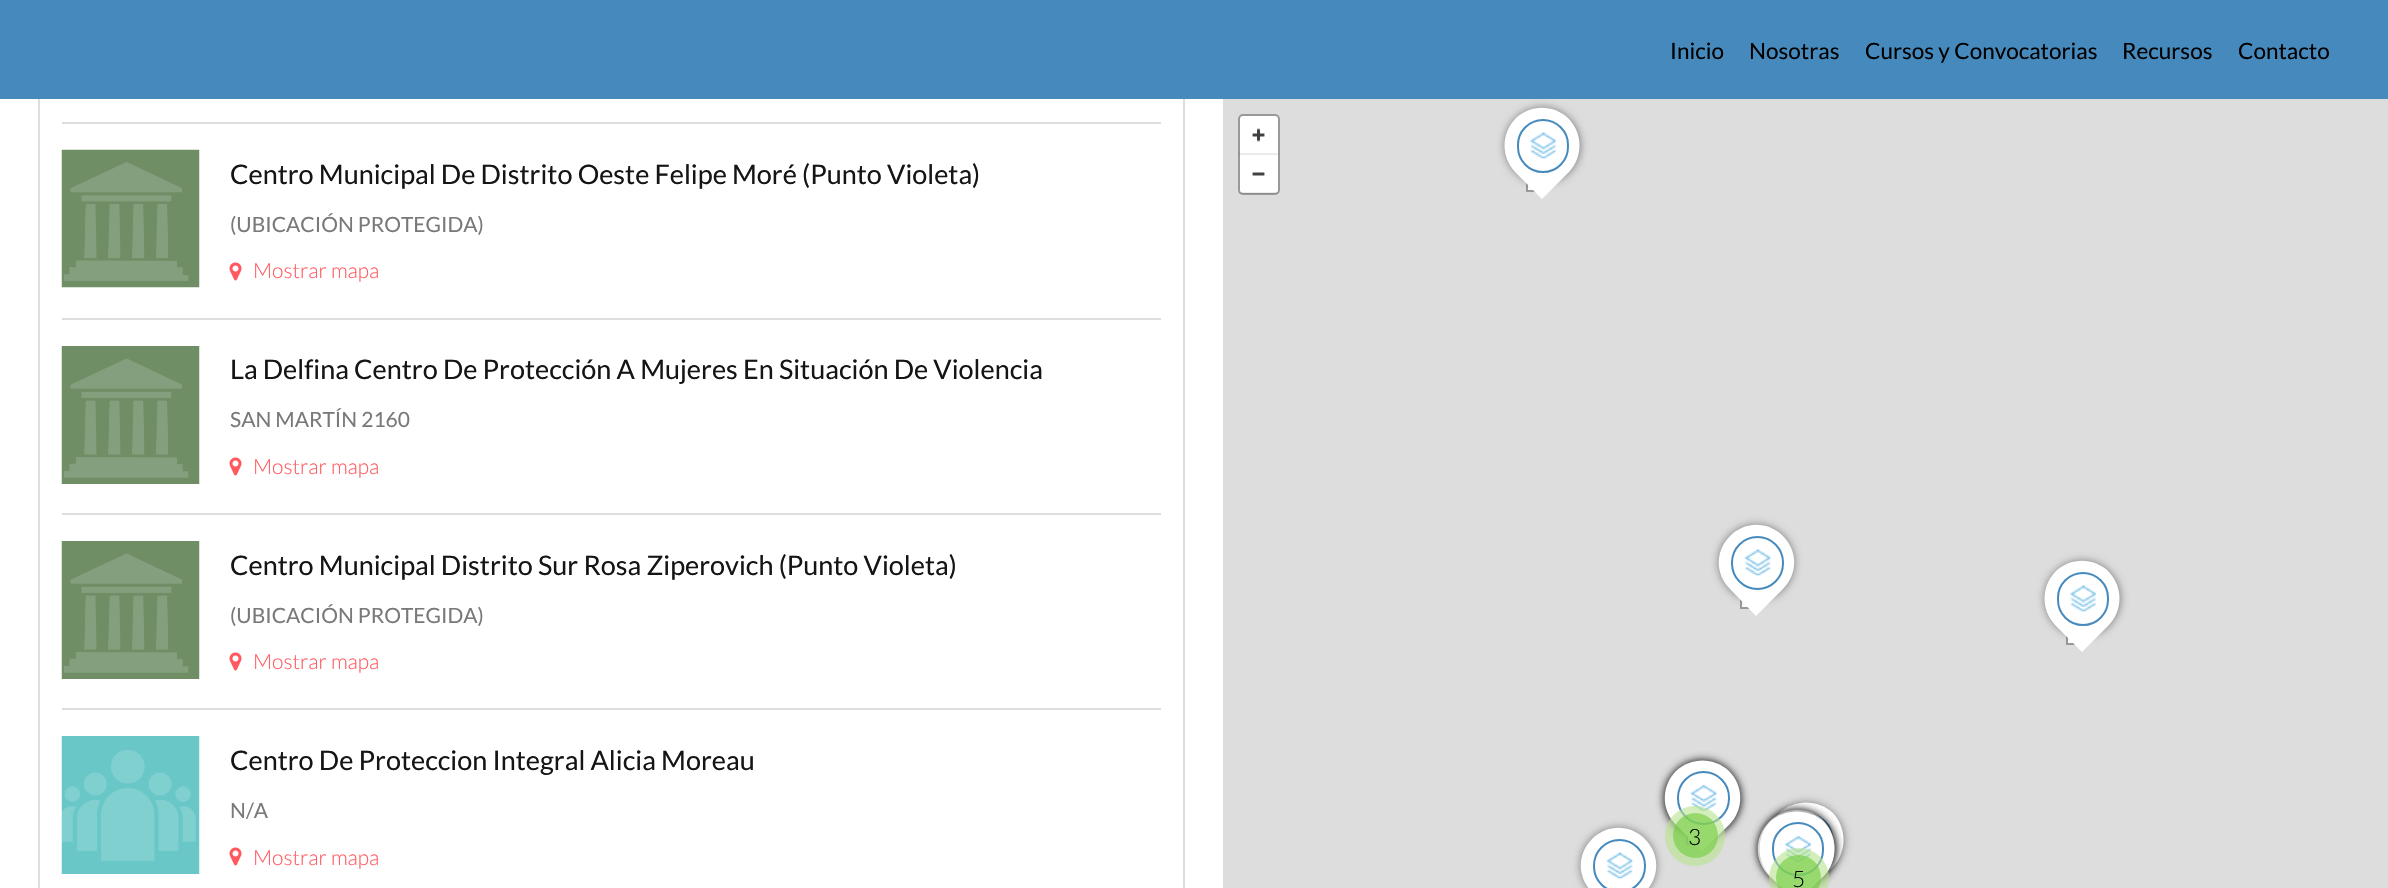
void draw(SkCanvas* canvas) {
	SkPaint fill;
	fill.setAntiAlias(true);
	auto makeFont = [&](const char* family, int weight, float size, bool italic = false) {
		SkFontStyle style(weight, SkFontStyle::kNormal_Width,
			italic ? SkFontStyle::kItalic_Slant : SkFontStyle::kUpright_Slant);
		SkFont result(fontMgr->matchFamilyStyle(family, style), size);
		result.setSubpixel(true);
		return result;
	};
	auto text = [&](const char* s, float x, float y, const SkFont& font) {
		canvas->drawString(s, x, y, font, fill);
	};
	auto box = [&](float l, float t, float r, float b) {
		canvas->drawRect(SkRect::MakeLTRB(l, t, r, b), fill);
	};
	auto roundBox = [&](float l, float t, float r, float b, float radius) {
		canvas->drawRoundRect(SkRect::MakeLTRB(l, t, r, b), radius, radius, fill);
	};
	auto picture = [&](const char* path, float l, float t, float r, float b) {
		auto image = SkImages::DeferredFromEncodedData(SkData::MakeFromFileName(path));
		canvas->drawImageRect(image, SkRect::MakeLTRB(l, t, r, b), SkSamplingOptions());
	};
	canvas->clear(0xFFFFFFFF);
	fill.setStyle(SkPaint::kStroke_Style);
	fill.setStrokeWidth(2);
	fill.setColor(0xFFDEDEDE);
	canvas->drawRect(SkRect::MakeLTRB(39, -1, 1184, 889), fill);
	fill.setStyle(SkPaint::kFill_Style);
	fill.setColor(0xFFDDDDDD);
	box(1223, 99, 2388, 888);
	fill.setColor(0xFFFFFFFF);
	box(1528, 185, 1533, 190);
	fill.setStyle(SkPaint::kStroke_Style);
	fill.setColor(0xFF999999);
	canvas->drawRect(SkRect::MakeLTRB(1527, 175, 1543, 191), fill);
	fill.setStyle(SkPaint::kFill_Style);
	fill.setColor(0x78000000);
	fill.setMaskFilter(SkMaskFilter::MakeBlur(kNormal_SkBlurStyle, 4));
	canvas->drawRoundRect(SkRect::MakeLTRB(1505, 108, 1580, 183), 37.5f, 37.5f, fill);
	fill.setMaskFilter(nullptr);
	fill.setColor(0xFF468ABD);
	box(0, 0, 2388, 99);
	fill.setColor(0xFFDEDEDE);
	box(62, 122, 1161, 124);
	box(62, 318, 1161, 320);
	picture("image0.png", 61, 149, 200, 288);
	picture("image1.png", 229, 262, 242, 281);
	box(62, 513, 1161, 515);
	picture("image2.png", 61, 346, 200, 484);
	picture("image1.png", 229, 457, 242, 476);
	box(62, 708, 1161, 710);
	picture("image2.png", 61, 541, 200, 679);
	picture("image1.png", 229, 652, 242, 671);
	picture("image3.png", 61, 736, 200, 874);
	picture("image1.png", 229, 847, 242, 866);
	fill.setColor(0xFFFFFFFF);
	roundBox(1238, 114, 1280, 195, 5);
	fill.setStyle(SkPaint::kStroke_Style);
	fill.setColor(0x66000000);
	canvas->drawRoundRect(SkRect::MakeLTRB(1239, 115, 1279, 194), 4, 4, fill);
	picture("image4.png", 1252, 128, 1265, 142);
	fill.setStyle(SkPaint::kFill_Style);
	fill.setColor(0x14000000);
	box(1239, 153, 1278, 155);
	picture("image5.png", 1252, 172, 1265, 176);
	box(1239, 192, 1278, 194);
	fill.setColor(0xFFFFFFFF);
	canvas->drawPath(SkPathBuilder().moveTo(1515, 119).cubicTo(1530, 104, 1554, 104, 1569, 119).cubicTo(1583, 134, 1583, 157, 1569, 172).lineTo(1542, 199).lineTo(1515, 172).cubicTo(1501, 157, 1501, 134, 1515, 119).close().detach(), fill);
	fill.setStyle(SkPaint::kStroke_Style);
	fill.setColor(0xFF468ABD);
	canvas->drawRoundRect(SkRect::MakeLTRB(1518, 120, 1568, 172), 25, 25, fill);
	picture("image6.png", 1530, 132, 1556, 159);
	fill.setStyle(SkPaint::kFill_Style);
	fill.setColor(0xFFFFFFFF);
	box(1742, 601, 1748, 607);
	fill.setStyle(SkPaint::kStroke_Style);
	fill.setColor(0xFF999999);
	canvas->drawRect(SkRect::MakeLTRB(1741, 592, 1757, 608), fill);
	fill.setStyle(SkPaint::kFill_Style);
	fill.setColor(0x78000000);
	fill.setMaskFilter(SkMaskFilter::MakeBlur(kNormal_SkBlurStyle, 4));
	canvas->drawRoundRect(SkRect::MakeLTRB(1719, 525, 1794, 600), 37.5f, 37.5f, fill);
	fill.setMaskFilter(nullptr);
	fill.setColor(0xFFFFFFFF);
	canvas->drawPath(SkPathBuilder().moveTo(1730, 536).cubicTo(1745, 521, 1768, 521, 1783, 536).cubicTo(1798, 551, 1798, 574, 1783, 589).lineTo(1756, 616).lineTo(1730, 589).cubicTo(1715, 574, 1715, 551, 1730, 536).close().detach(), fill);
	fill.setStyle(SkPaint::kStroke_Style);
	fill.setColor(0xFF468ABD);
	canvas->drawRoundRect(SkRect::MakeLTRB(1732, 537, 1783, 589), 25.5f, 25.5f, fill);
	picture("image7.png", 1744, 549, 1771, 576);
	fill.setStyle(SkPaint::kFill_Style);
	fill.setColor(0xFFFFFFFF);
	box(2068, 638, 2073, 643);
	fill.setStyle(SkPaint::kStroke_Style);
	fill.setColor(0xFF999999);
	canvas->drawRect(SkRect::MakeLTRB(2067, 628, 2083, 644), fill);
	fill.setStyle(SkPaint::kFill_Style);
	fill.setColor(0x78000000);
	fill.setMaskFilter(SkMaskFilter::MakeBlur(kNormal_SkBlurStyle, 4));
	canvas->drawRoundRect(SkRect::MakeLTRB(2045, 561, 2120, 636), 37.5f, 37.5f, fill);
	fill.setMaskFilter(nullptr);
	fill.setColor(0xFFFFFFFF);
	canvas->drawPath(SkPathBuilder().moveTo(2055, 572).cubicTo(2070, 557, 2094, 557, 2109, 572).cubicTo(2123, 587, 2123, 610, 2109, 625).lineTo(2082, 652).lineTo(2055, 625).cubicTo(2041, 610, 2041, 587, 2055, 572).close().detach(), fill);
	fill.setStyle(SkPaint::kStroke_Style);
	fill.setColor(0xFF468ABD);
	canvas->drawRoundRect(SkRect::MakeLTRB(2058, 573, 2108, 625), 25, 25, fill);
	picture("image6.png", 2070, 585, 2096, 612);
	fill.setStyle(SkPaint::kFill_Style);
	fill.setColor(0x78000000);
	fill.setMaskFilter(SkMaskFilter::MakeBlur(kNormal_SkBlurStyle, 4));
	canvas->drawRoundRect(SkRect::MakeLTRB(1665, 761, 1740, 836), 37.5f, 37.5f, fill);
	fill.setMaskFilter(nullptr);
	fill.setMaskFilter(SkMaskFilter::MakeBlur(kNormal_SkBlurStyle, 4));
	canvas->drawRoundRect(SkRect::MakeLTRB(1665, 761, 1740, 836), 37.5f, 37.5f, fill);
	fill.setMaskFilter(nullptr);
	fill.setColor(0xFFFFFFFF);
	box(1688, 837, 1694, 843);
	fill.setStyle(SkPaint::kStroke_Style);
	fill.setColor(0xFF999999);
	canvas->drawRect(SkRect::MakeLTRB(1687, 828, 1703, 844), fill);
	fill.setStyle(SkPaint::kFill_Style);
	fill.setColor(0x78000000);
	fill.setMaskFilter(SkMaskFilter::MakeBlur(kNormal_SkBlurStyle, 4));
	canvas->drawRoundRect(SkRect::MakeLTRB(1665, 761, 1740, 836), 37.5f, 37.5f, fill);
	fill.setMaskFilter(nullptr);
	fill.setColor(0xFFFFFFFF);
	canvas->drawPath(SkPathBuilder().moveTo(1676, 771).cubicTo(1691, 757, 1714, 757, 1729, 771).cubicTo(1744, 786, 1744, 810, 1729, 825).lineTo(1702, 851).lineTo(1676, 825).cubicTo(1661, 810, 1661, 786, 1676, 771).close().detach(), fill);
	fill.setStyle(SkPaint::kStroke_Style);
	fill.setColor(0xFF468ABD);
	canvas->drawRoundRect(SkRect::MakeLTRB(1678, 772, 1729, 824), 25.5f, 25.5f, fill);
	picture("image8.png", 1690, 785, 1717, 811);
	fill.setStyle(SkPaint::kFill_Style);
	fill.setColor(0x78000000);
	fill.setMaskFilter(SkMaskFilter::MakeBlur(kNormal_SkBlurStyle, 4));
	canvas->drawRoundRect(SkRect::MakeLTRB(1769, 803, 1844, 878), 37.5f, 37.5f, fill);
	fill.setMaskFilter(nullptr);
	fill.setColor(0xFFFFFFFF);
	canvas->drawPath(SkPathBuilder().moveTo(1779, 813).cubicTo(1794, 799, 1818, 799, 1833, 813).cubicTo(1847, 828, 1847, 852, 1833, 867).lineTo(1806, 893).lineTo(1779, 867).cubicTo(1765, 852, 1765, 828, 1779, 813).close().detach(), fill);
	fill.setStyle(SkPaint::kStroke_Style);
	fill.setColor(0xFF468ABD);
	canvas->drawRoundRect(SkRect::MakeLTRB(1782, 814, 1832, 866), 25, 25, fill);
	fill.setStyle(SkPaint::kFill_Style);
	fill.setColor(0x78000000);
	fill.setMaskFilter(SkMaskFilter::MakeBlur(kNormal_SkBlurStyle, 4));
	canvas->drawRoundRect(SkRect::MakeLTRB(1760, 810, 1835, 885), 37.5f, 37.5f, fill);
	fill.setMaskFilter(nullptr);
	fill.setMaskFilter(SkMaskFilter::MakeBlur(kNormal_SkBlurStyle, 4));
	canvas->drawRoundRect(SkRect::MakeLTRB(1760, 810, 1835, 885), 37.5f, 37.5f, fill);
	fill.setMaskFilter(nullptr);
	fill.setColor(0xFFFFFFFF);
	canvas->drawPath(SkPathBuilder().moveTo(1770, 821).cubicTo(1785, 806, 1809, 806, 1824, 821).cubicTo(1838, 836, 1838, 859, 1824, 874).lineTo(1797, 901).lineTo(1770, 874).cubicTo(1756, 859, 1756, 836, 1770, 821).close().detach(), fill);
	fill.setStyle(SkPaint::kStroke_Style);
	fill.setColor(0xFF999999);
	canvas->drawRect(SkRect::MakeLTRB(1780, 879, 1796, 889), fill);
	fill.setStyle(SkPaint::kFill_Style);
	fill.setColor(0x78000000);
	fill.setMaskFilter(SkMaskFilter::MakeBlur(kNormal_SkBlurStyle, 4));
	canvas->drawRoundRect(SkRect::MakeLTRB(1758, 812, 1833, 887), 37.5f, 37.5f, fill);
	fill.setMaskFilter(nullptr);
	fill.setColor(0xFFFFFFFF);
	canvas->drawPath(SkPathBuilder().moveTo(1769, 822).cubicTo(1784, 808, 1807, 808, 1822, 822).cubicTo(1837, 837, 1837, 861, 1822, 876).lineTo(1796, 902).lineTo(1769, 876).cubicTo(1754, 861, 1754, 837, 1769, 822).close().detach(), fill);
	fill.setColor(0x78000000);
	fill.setMaskFilter(SkMaskFilter::MakeBlur(kNormal_SkBlurStyle, 4));
	canvas->drawRoundRect(SkRect::MakeLTRB(1581, 828, 1656, 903), 37.5f, 37.5f, fill);
	fill.setMaskFilter(nullptr);
	fill.setColor(0xFFFFFFFF);
	canvas->drawPath(SkPathBuilder().moveTo(1592, 839).cubicTo(1607, 824, 1630, 824, 1645, 839).cubicTo(1660, 854, 1660, 877, 1645, 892).lineTo(1618, 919).lineTo(1592, 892).cubicTo(1577, 877, 1577, 854, 1592, 839).close().detach(), fill);
	fill.setStyle(SkPaint::kStroke_Style);
	fill.setColor(0xFF468ABD);
	canvas->drawRoundRect(SkRect::MakeLTRB(1594, 840, 1645, 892), 25.5f, 25.5f, fill);
	picture("image7.png", 1606, 852, 1633, 879);
	fill.setStyle(SkPaint::kFill_Style);
	fill.setColor(0x99B5E28C);
	canvas->drawCircle(1695, 836, 30, fill);
	fill.setColor(0x996ECC39);
	canvas->drawCircle(1695.5f, 835.5f, 22.5f, fill);
	fill.setStyle(SkPaint::kStroke_Style);
	fill.setColor(0xFF999999);
	canvas->drawRect(SkRect::MakeLTRB(1782, 879, 1798, 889), fill);
	fill.setStyle(SkPaint::kFill_Style);
	fill.setColor(0x78000000);
	fill.setMaskFilter(SkMaskFilter::MakeBlur(kNormal_SkBlurStyle, 4));
	canvas->drawRoundRect(SkRect::MakeLTRB(1760, 812, 1835, 887), 37.5f, 37.5f, fill);
	fill.setMaskFilter(nullptr);
	fill.setColor(0xFFFFFFFF);
	canvas->drawPath(SkPathBuilder().moveTo(1770, 822).cubicTo(1785, 808, 1809, 808, 1824, 822).cubicTo(1838, 837, 1838, 861, 1824, 876).lineTo(1797, 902).lineTo(1770, 876).cubicTo(1756, 861, 1756, 837, 1770, 822).close().detach(), fill);
	fill.setStyle(SkPaint::kStroke_Style);
	fill.setColor(0xFF468ABD);
	canvas->drawRoundRect(SkRect::MakeLTRB(1773, 823, 1823, 875), 25, 25, fill);
	picture("image9.png", 1785, 836, 1811, 862);
	fill.setStyle(SkPaint::kFill_Style);
	fill.setColor(0x99B5E28C);
	canvas->drawCircle(1799, 878, 30, fill);
	fill.setColor(0x996ECC39);
	canvas->drawCircle(1798.5f, 877.5f, 22.5f, fill);
	auto font1 = makeFont("Lato", 400, 22.5f);
	fill.setColor(0xFF000000);
	text("Inicio", 1670, 59, font1);
	text("Nosotras", 1749, 59, font1);
	text("Cursos y Convocatorias", 1865, 59, font1);
	text("Recursos", 2122, 59, font1);
	text("Contacto", 2238, 59, font1);
	auto font2 = makeFont("Lato", 400, 27);
	fill.setColor(0xFF151515);
	text("Centro Municipal De Distrito Oeste Felipe Moré (Punto Violeta)", 230, 184, font2);
	auto font3 = makeFont("Lato", 400, 21);
	fill.setColor(0xFF797979);
	text("(UBICACIÓN PROTEGIDA)", 230, 232, font3);
	auto font4 = makeFont("Lato", 300, 21);
	fill.setColor(0xFFFF595F);
	text("Mostrar mapa", 253, 278, font4);
	fill.setColor(0xFF151515);
	text("La Delfina Centro De Protección A Mujeres En Situación De Violencia", 230, 379, font2);
	fill.setColor(0xFF797979);
	text("SAN MARTÍN 2160", 230, 427, font3);
	fill.setColor(0xFFFF595F);
	text("Mostrar mapa", 253, 474, font4);
	fill.setColor(0xFF151515);
	text("Centro Municipal Distrito Sur Rosa Ziperovich (Punto Violeta)", 230, 575, font2);
	fill.setColor(0xFF797979);
	text("(UBICACIÓN PROTEGIDA)", 230, 623, font3);
	fill.setColor(0xFFFF595F);
	text("Mostrar mapa", 253, 669, font4);
	fill.setColor(0xFF151515);
	text("Centro De Proteccion Integral Alicia Moreau", 230, 770, font2);
	fill.setColor(0xFF797979);
	text("N/A", 230, 818, font3);
	fill.setColor(0xFFFF595F);
	text("Mostrar mapa", 253, 865, font4);
	auto font5 = makeFont("Lato", 300, 22.5f);
	fill.setColor(0xFF000000);
	text("3", 1688, 845, font5);
	text("5", 1792, 887, font5);
}
